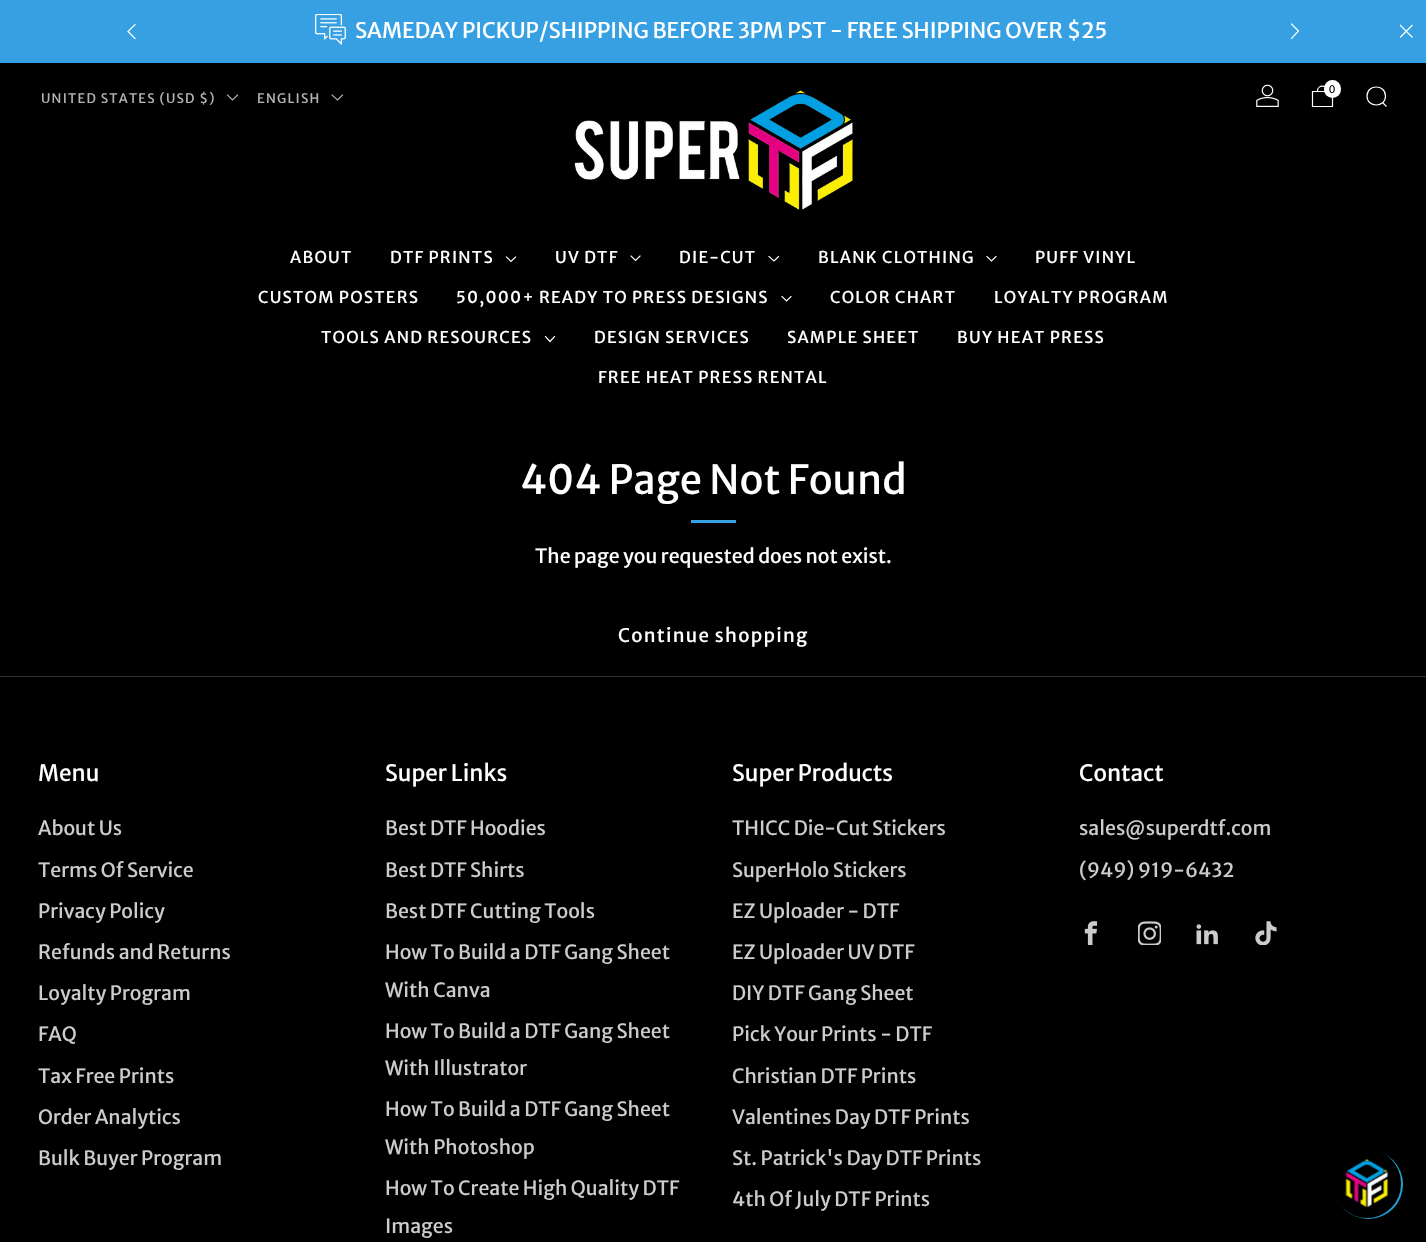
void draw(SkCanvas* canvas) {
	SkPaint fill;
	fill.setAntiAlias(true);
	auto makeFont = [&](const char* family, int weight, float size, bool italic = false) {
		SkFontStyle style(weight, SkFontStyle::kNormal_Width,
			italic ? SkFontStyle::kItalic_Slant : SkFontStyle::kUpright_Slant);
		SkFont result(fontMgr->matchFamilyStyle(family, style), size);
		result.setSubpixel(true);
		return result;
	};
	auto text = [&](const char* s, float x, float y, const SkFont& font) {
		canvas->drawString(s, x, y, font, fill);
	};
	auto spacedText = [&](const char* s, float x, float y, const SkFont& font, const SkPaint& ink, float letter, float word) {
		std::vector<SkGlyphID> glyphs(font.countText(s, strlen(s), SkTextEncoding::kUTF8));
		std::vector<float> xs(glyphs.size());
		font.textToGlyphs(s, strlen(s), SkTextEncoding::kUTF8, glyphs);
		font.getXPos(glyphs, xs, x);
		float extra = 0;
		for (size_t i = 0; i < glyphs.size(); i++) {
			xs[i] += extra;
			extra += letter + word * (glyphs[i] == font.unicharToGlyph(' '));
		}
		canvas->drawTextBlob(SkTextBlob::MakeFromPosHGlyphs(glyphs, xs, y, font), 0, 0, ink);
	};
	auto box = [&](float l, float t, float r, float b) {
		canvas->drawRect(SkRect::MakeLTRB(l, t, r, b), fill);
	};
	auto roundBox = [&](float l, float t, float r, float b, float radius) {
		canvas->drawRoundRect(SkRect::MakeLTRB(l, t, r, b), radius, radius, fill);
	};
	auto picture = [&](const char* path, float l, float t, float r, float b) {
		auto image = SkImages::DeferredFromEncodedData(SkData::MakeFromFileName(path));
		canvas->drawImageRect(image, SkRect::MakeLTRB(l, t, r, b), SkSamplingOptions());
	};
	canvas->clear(0xFF000000);
	fill.setColor(0xFF36A0E3);
	box(0, 0, 1426, 63);
	fill.setStyle(SkPaint::kStroke_Style);
	fill.setStrokeWidth(1.2f);
	fill.setStrokeCap(SkPaint::kSquare_Cap);
	fill.setColor(0xFFFFFFFF);
	canvas->drawPath(SkPathBuilder().moveTo(135, 38.5f).lineTo(128, 31.5f).lineTo(135, 24.5f).detach(), fill);
	picture("image0.png", 315, 14, 346, 45);
	canvas->drawPath(SkPathBuilder().moveTo(1291.5f, 24).lineTo(1298.5f, 31).lineTo(1291.5f, 38.5f).detach(), fill);
	fill.setStrokeCap(SkPaint::kButt_Cap);
	canvas->drawPath(SkPathBuilder().moveTo(1400, 37.5f).lineTo(1412.5f, 25).moveTo(1400, 25).lineTo(1412.5f, 37.5f).detach(), fill);
	picture("image1.png", 1256, 84, 1279, 107);
	canvas->drawPath(SkPathBuilder().moveTo(1327.5f, 91).cubicTo(1327.5f, 84.5f, 1317.5f, 84.5f, 1317.5f, 91).moveTo(1312.5f, 91.5f).lineTo(1332.5f, 91.5f).lineTo(1332.5f, 106.5f).lineTo(1312.5f, 106.5f).close().detach(), fill);
	fill.setStyle(SkPaint::kFill_Style);
	roundBox(1324, 80, 1341, 98, 8.5f);
	fill.setStyle(SkPaint::kStroke_Style);
	canvas->drawPath(SkPathBuilder().moveTo(1382.5f, 102.5f).lineTo(1386.5f, 106.5f).moveTo(1385.5f, 96).cubicTo(1385.5f, 108, 1367, 108, 1367, 96).cubicTo(1367, 84, 1385.5f, 84, 1385.5f, 96).close().detach(), fill);
	fill.setStrokeCap(SkPaint::kSquare_Cap);
	fill.setColor(0xFFB3B3B3);
	canvas->drawPath(SkPathBuilder().moveTo(237.5f, 95).lineTo(232.5f, 100).lineTo(227.5f, 95).detach(), fill);
	canvas->drawPath(SkPathBuilder().moveTo(342.5f, 95).lineTo(337.5f, 100).lineTo(332, 95).detach(), fill);
	fill.setColor(0xFFFFFFFF);
	canvas->drawPath(SkPathBuilder().moveTo(515.5f, 257).lineTo(511, 261.5f).lineTo(506.5f, 257).detach(), fill);
	canvas->drawPath(SkPathBuilder().moveTo(640, 256).lineTo(635.5f, 260.5f).lineTo(631, 256).detach(), fill);
	canvas->drawPath(SkPathBuilder().moveTo(778.5f, 256.5f).lineTo(774, 261).lineTo(769, 256.5f).detach(), fill);
	canvas->drawPath(SkPathBuilder().moveTo(996, 256.5f).lineTo(991.5f, 261).lineTo(987, 256.5f).detach(), fill);
	canvas->drawPath(SkPathBuilder().moveTo(791, 296.5f).lineTo(786.5f, 301).lineTo(782, 296.5f).detach(), fill);
	canvas->drawPath(SkPathBuilder().moveTo(554.5f, 336.5f).lineTo(550, 341.5f).lineTo(545.5f, 336.5f).detach(), fill);
	picture("image2.png", 574, 90, 853, 210);
	fill.setStyle(SkPaint::kFill_Style);
	fill.setColor(0xFF36A0E3);
	box(691, 520, 736, 523);
	fill.setColor(0xFF333333);
	box(0, 676, 1426, 677);
	picture("image3.png", 1084, 921, 1098, 945);
	picture("image4.png", 1138, 921, 1161, 945);
	picture("image5.png", 1196, 924, 1218, 945);
	picture("image6.png", 1255, 921, 1277, 945);
	fill.setColor(0xFF29ABE2);
	canvas->drawCircle(1368.5f, 1184.5f, 34.5f, fill);
	fill.setColor(0x33000000);
	fill.setMaskFilter(SkMaskFilter::MakeBlur(kNormal_SkBlurStyle, 9.5f));
	canvas->drawRoundRect(SkRect::MakeLTRB(1333, 1154, 1401, 1223), 34, 34, fill);
	fill.setMaskFilter(nullptr);
	fill.setColor(0xFF000000);
	roundBox(1333, 1149, 1401, 1218, 34);
	picture("image7.png", 1345, 1158, 1389, 1207);
	auto font1 = makeFont("Merriweather Sans", 400, 21.45f);
	fill.setColor(0xFFFFFFFF);
	text("SAMEDAY PICKUP/SHIPPING BEFORE 3PM PST - FREE SHIPPING OVER $25", 355, 38, font1);
	auto font2 = makeFont("Liberation Sans", 400, 11);
	fill.setColor(0xFF000000);
	text("0", 1329, 93, font2);
	auto font3 = makeFont("Merriweather Sans", 400, 13);
	fill.setColor(0xFFB3B3B3);
	spacedText("UNITED STATES (USD $)", 41, 103, font3, fill, 1.25f, 0);
	spacedText("ENGLISH", 257, 103, font3, fill, 1.25f, 0);
	auto font4 = makeFont("Merriweather Sans", 400, 16.25f);
	fill.setColor(0xFFFFFFFF);
	spacedText("ABOUT", 290, 263, font4, fill, 1.25f, 0);
	spacedText("DTF PRINTS", 390, 263, font4, fill, 1.25f, 0);
	spacedText("UV DTF", 555, 263, font4, fill, 1.25f, 0);
	spacedText("DIE-CUT", 679, 263, font4, fill, 1.25f, 0);
	spacedText("BLANK CLOTHING", 818, 263, font4, fill, 1.25f, 0);
	spacedText("PUFF VINYL", 1035, 263, font4, fill, 1.25f, 0);
	spacedText("CUSTOM POSTERS", 258, 303, font4, fill, 1.25f, 0);
	spacedText("50,000+ READY TO PRESS DESIGNS", 456, 303, font4, fill, 1.25f, 0);
	spacedText("COLOR CHART", 830, 303, font4, fill, 1.25f, 0);
	spacedText("LOYALTY PROGRAM", 994, 303, font4, fill, 1.25f, 0);
	spacedText("TOOLS AND RESOURCES", 321, 343, font4, fill, 1.25f, 0);
	spacedText("DESIGN SERVICES", 594, 343, font4, fill, 1.25f, 0);
	spacedText("SAMPLE SHEET", 787, 343, font4, fill, 1.25f, 0);
	spacedText("BUY HEAT PRESS", 957, 343, font4, fill, 1.25f, 0);
	spacedText("FREE HEAT PRESS RENTAL", 598, 383, font4, fill, 1.25f, 0);
	auto font5 = makeFont("Merriweather Sans", 400, 40);
	text("404 Page Not Found", 520, 494, font5);
	auto font6 = makeFont("Merriweather Sans", 400, 19.5f);
	text("The page you requested does not exist.", 535, 563, font6);
	auto font7 = makeFont("Merriweather Sans", 400, 18.75f);
	spacedText("Continue shopping", 618, 642, font7, fill, 1.25f, 0);
	auto font8 = makeFont("Merriweather Sans", 400, 22.5f);
	text("Menu", 38, 781, font8);
	fill.setColor(0xFFCCCCCC);
	text("About Us", 38, 835, font6);
	text("Terms Of Service", 38, 877, font6);
	text("Privacy Policy", 38, 918, font6);
	text("Refunds and Returns", 38, 959, font6);
	text("Loyalty Program", 38, 1000, font6);
	text("FAQ", 38, 1041, font6);
	text("Tax Free Prints", 38, 1083, font6);
	text("Order Analytics", 38, 1124, font6);
	text("Bulk Buyer Program", 38, 1165, font6);
	fill.setColor(0xFFFFFFFF);
	text("Super Links", 385, 781, font8);
	fill.setColor(0xFFCCCCCC);
	text("Best DTF Hoodies", 385, 835, font6);
	text("Best DTF Shirts", 385, 877, font6);
	text("Best DTF Cutting Tools", 385, 918, font6);
	text("How To Build a DTF Gang Sheet", 385, 959, font6);
	text("With Canva", 385, 997, font6);
	text("How To Build a DTF Gang Sheet", 385, 1038, font6);
	text("With Illustrator", 385, 1075, font6);
	text("How To Build a DTF Gang Sheet", 385, 1116, font6);
	text("With Photoshop", 385, 1154, font6);
	text("How To Create High Quality DTF", 385, 1195, font6);
	text("Images", 385, 1233, font6);
	fill.setColor(0xFFFFFFFF);
	text("Super Products", 732, 781, font8);
	fill.setColor(0xFFCCCCCC);
	text("THICC Die-Cut Stickers", 732, 835, font6);
	text("SuperHolo Stickers", 732, 877, font6);
	text("EZ Uploader - DTF", 732, 918, font6);
	text("EZ Uploader UV DTF", 732, 959, font6);
	text("DIY DTF Gang Sheet", 732, 1000, font6);
	text("Pick Your Prints - DTF", 732, 1041, font6);
	text("Christian DTF Prints", 732, 1083, font6);
	text("Valentines Day DTF Prints", 732, 1124, font6);
	text("St. Patrick's Day DTF Prints", 732, 1165, font6);
	text("4th Of July DTF Prints", 732, 1206, font6);
	fill.setColor(0xFFFFFFFF);
	text("Contact", 1079, 781, font8);
	fill.setColor(0xFFCCCCCC);
	text("sales@superdtf.com", 1079, 835, font6);
	text("(949) 919-6432", 1079, 877, font6);
}
